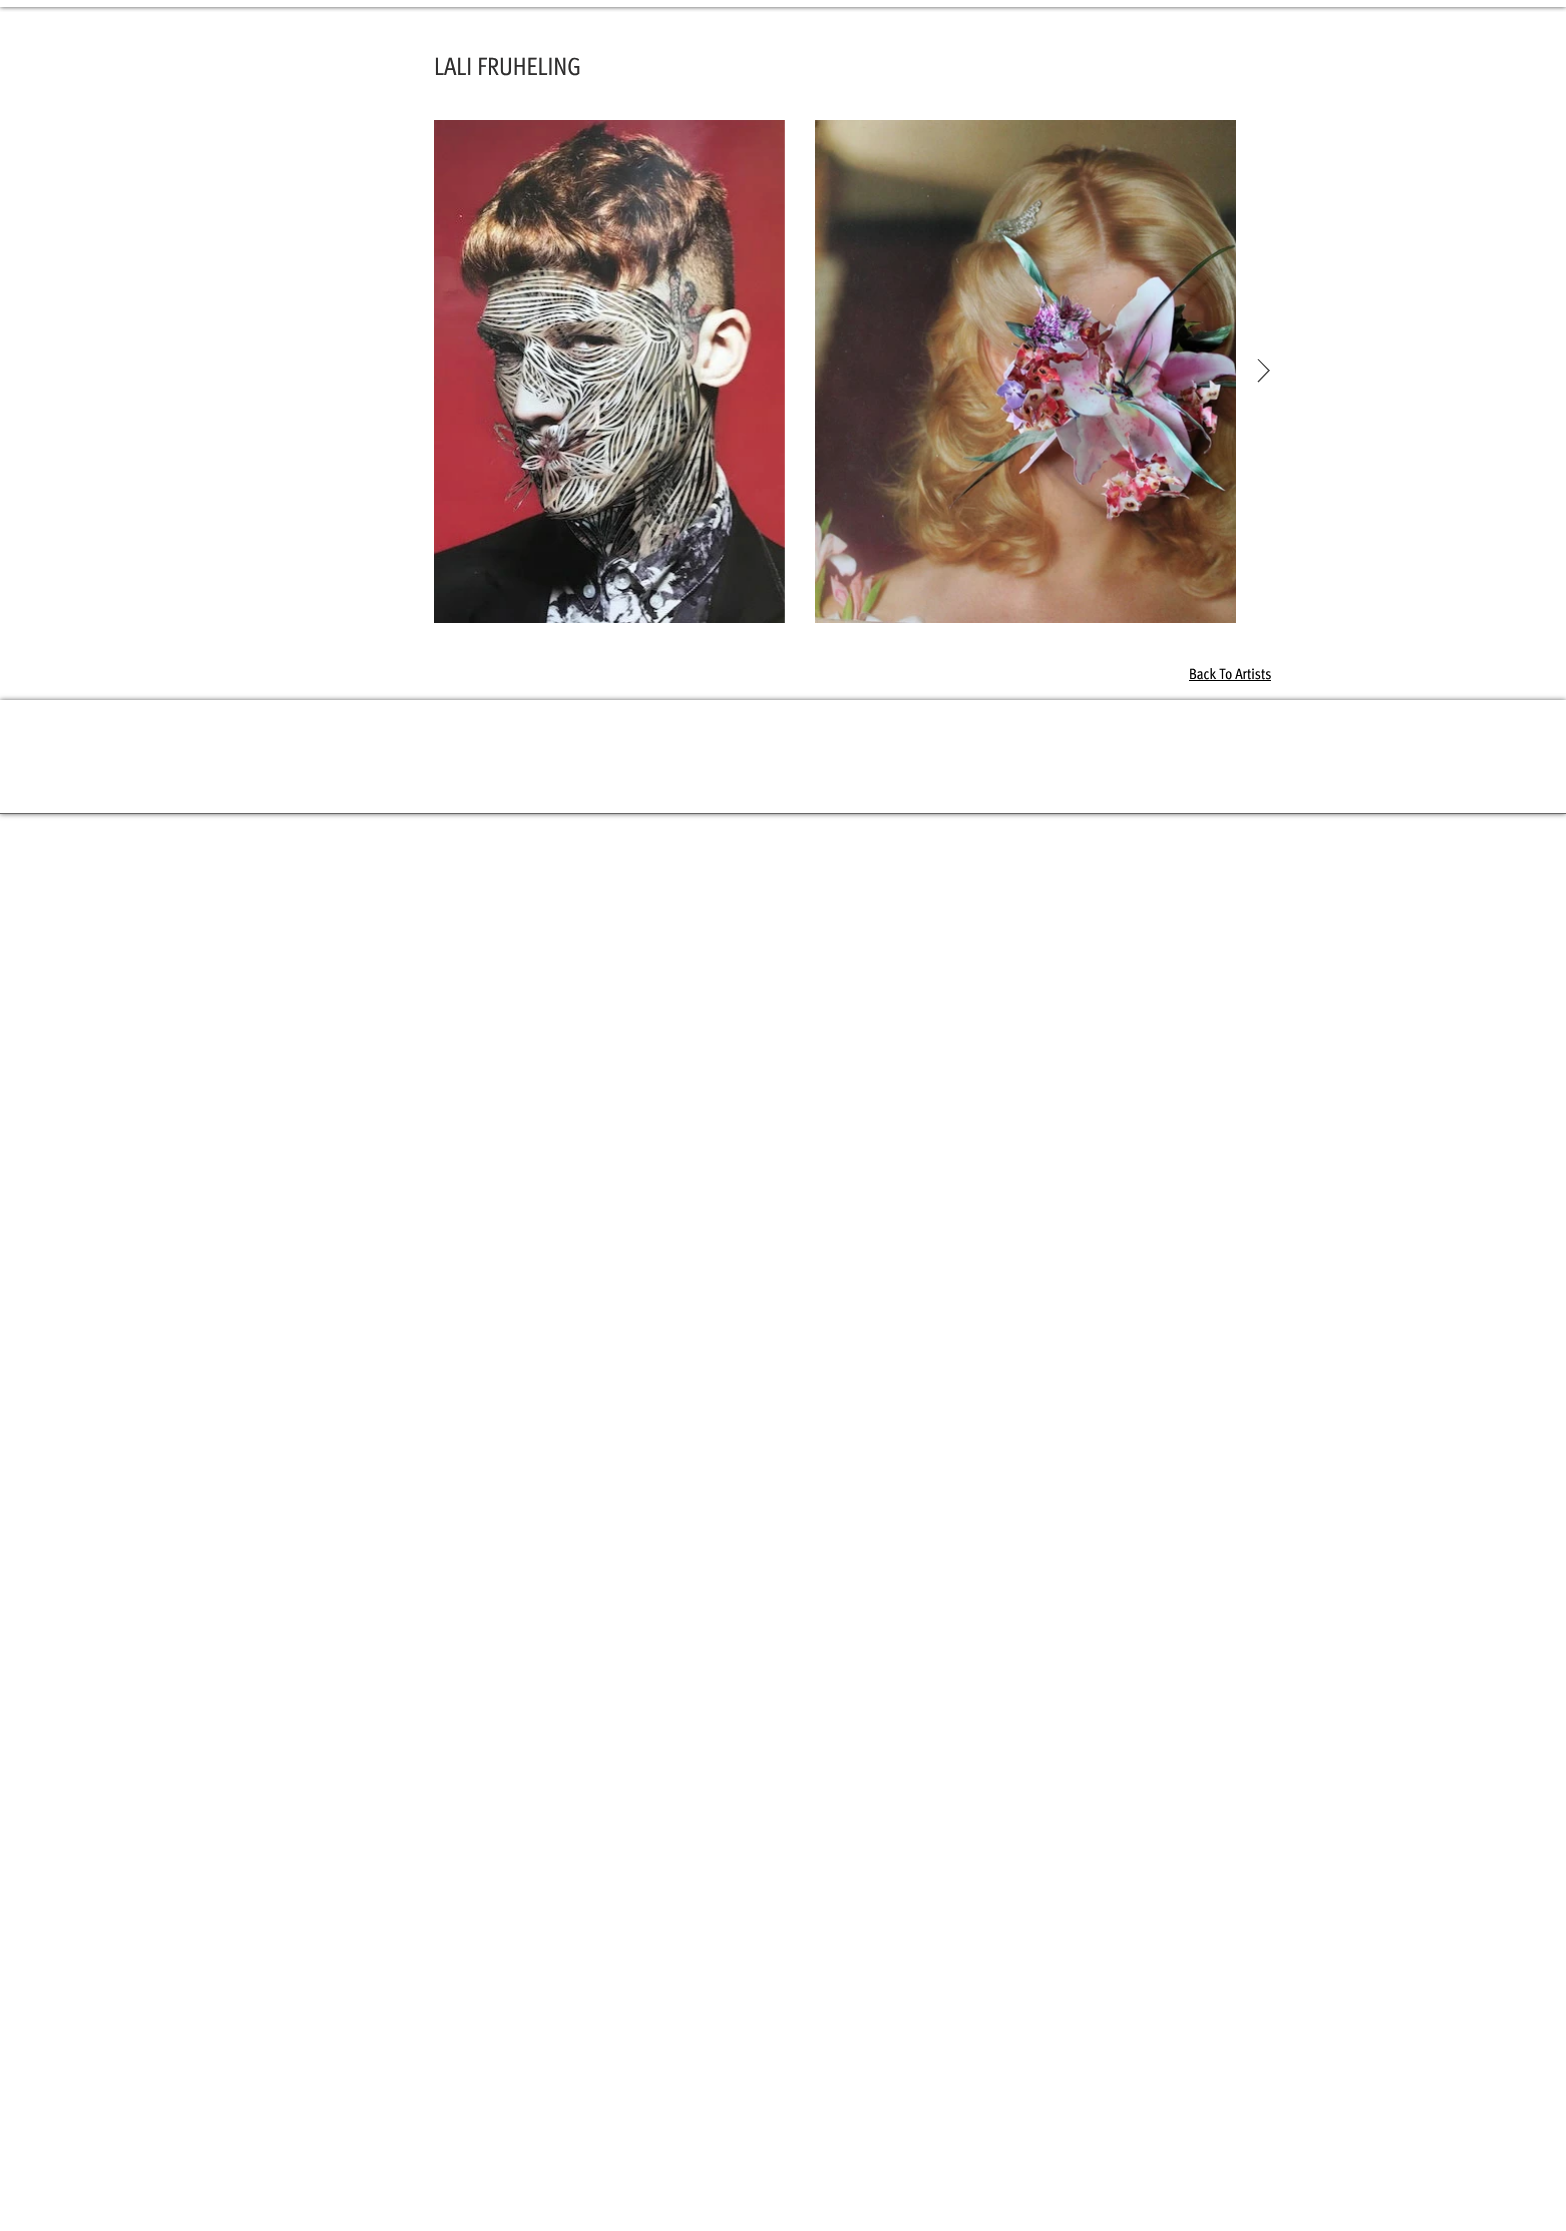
void draw(SkCanvas* canvas) {
	SkPaint fill;
	fill.setAntiAlias(true);
	auto makeFont = [&](const char* family, int weight, float size, bool italic = false) {
		SkFontStyle style(weight, SkFontStyle::kNormal_Width,
			italic ? SkFontStyle::kItalic_Slant : SkFontStyle::kUpright_Slant);
		SkFont result(fontMgr->matchFamilyStyle(family, style), size);
		result.setSubpixel(true);
		return result;
	};
	auto text = [&](const char* s, float x, float y, const SkFont& font) {
		canvas->drawString(s, x, y, font, fill);
	};
	auto box = [&](float l, float t, float r, float b) {
		canvas->drawRect(SkRect::MakeLTRB(l, t, r, b), fill);
	};
	auto picture = [&](const char* path, float l, float t, float r, float b) {
		auto image = SkImages::DeferredFromEncodedData(SkData::MakeFromFileName(path));
		canvas->drawImageRect(image, SkRect::MakeLTRB(l, t, r, b), SkSamplingOptions());
	};
	canvas->clear(0xFFFFFFFF);
	canvas->save();
	canvas->clipRect(SkRect::MakeLTRB(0, 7, 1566, 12));
	fill.setColor(0xB3000000);
	fill.setMaskFilter(SkMaskFilter::MakeBlur(kNormal_SkBlurStyle, 2.5f));
	canvas->drawRect(SkRect::MakeLTRB(0, 0, 1566, 7), fill);
	fill.setMaskFilter(nullptr);
	canvas->restore();
	picture("image0.png", 434, 120, 785, 623);
	picture("image1.png", 815, 120, 1236, 623);
	fill.setColor(0xFF474747);
	canvas->drawPath(SkPathBuilder().moveTo(1257.5f, 359.5f).lineTo(1258.5f, 359).lineTo(1270, 370.5f).lineTo(1258.5f, 382.5f).lineTo(1257.5f, 381.5f).lineTo(1268, 370.5f).close().detach(), fill);
	fill.setColor(0xFF000000);
	box(1189, 680, 1271, 681);
	canvas->save();
	canvas->clipPath(SkPathBuilder(SkPathFillType::kEvenOdd).moveTo(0, 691).lineTo(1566, 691).lineTo(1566, 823).lineTo(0, 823).close().moveTo(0, 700).lineTo(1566, 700).lineTo(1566, 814).lineTo(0, 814).close().detach(), true);
	fill.setColor(0x99000000);
	fill.setMaskFilter(SkMaskFilter::MakeBlur(kNormal_SkBlurStyle, 2.5f));
	canvas->drawRect(SkRect::MakeLTRB(0, 700, 1566, 814), fill);
	fill.setMaskFilter(nullptr);
	canvas->restore();
	fill.setColor(0xFF666666);
	box(0, 813, 1566, 814);
	auto font1 = makeFont("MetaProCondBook", 400, 25);
	fill.setColor(0xFF2F2E2E);
	text("LALI FRUHELING", 434, 75, font1);
	auto font2 = makeFont("MetaProCondBook", 400, 15);
	fill.setColor(0xFF000000);
	text("Back To Artists", 1189, 679, font2);
}
